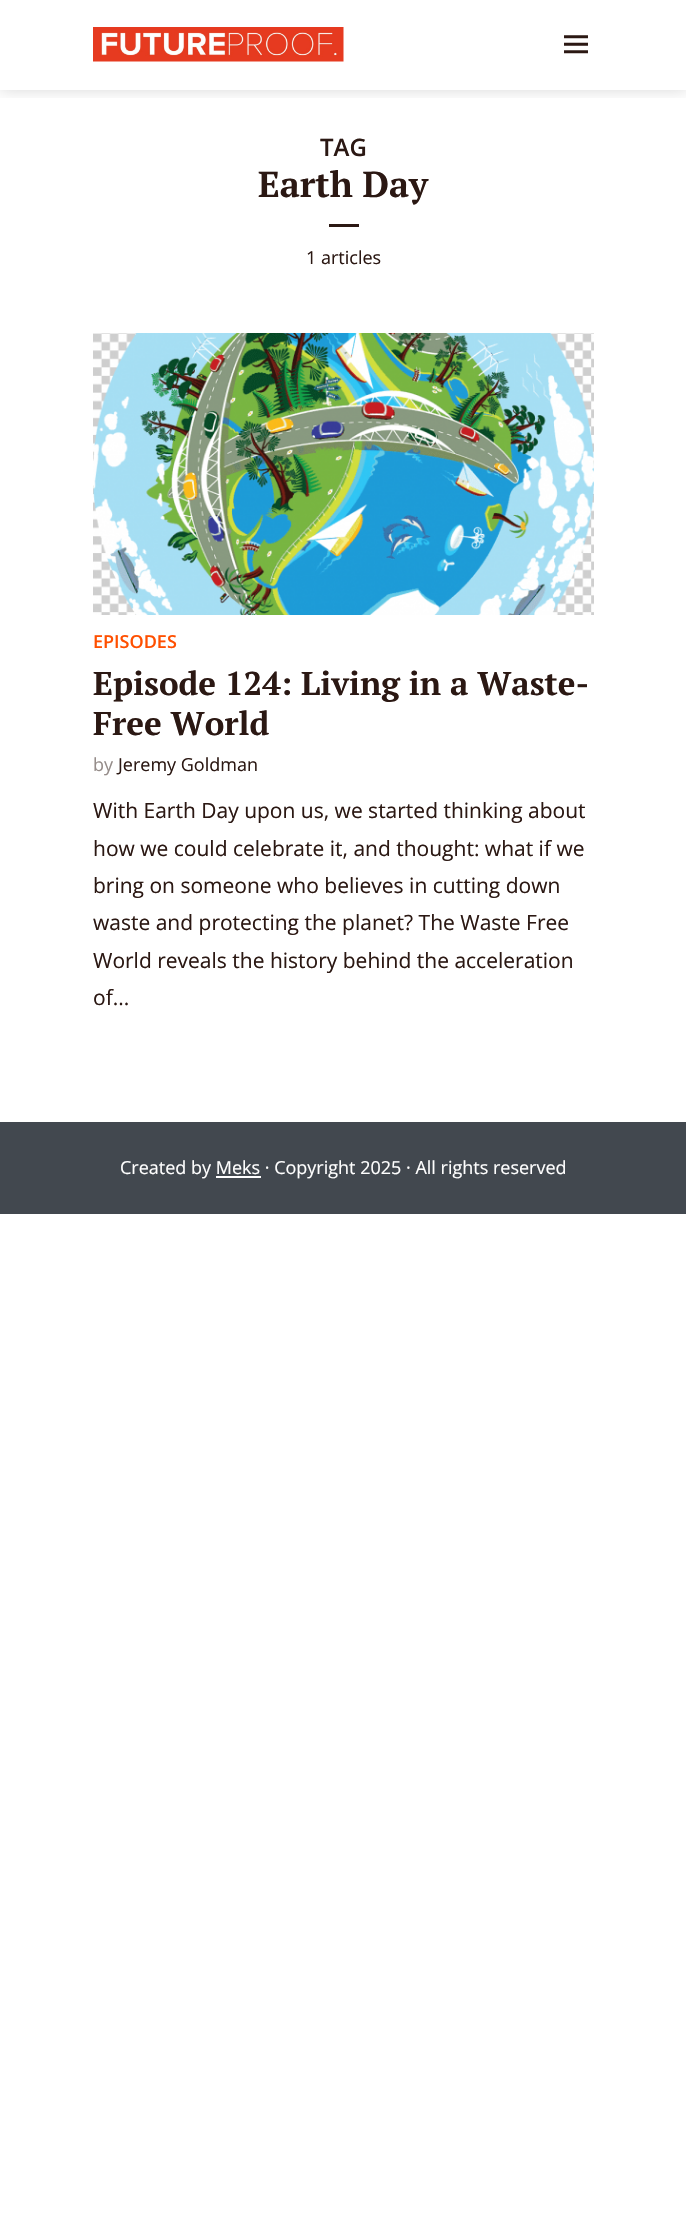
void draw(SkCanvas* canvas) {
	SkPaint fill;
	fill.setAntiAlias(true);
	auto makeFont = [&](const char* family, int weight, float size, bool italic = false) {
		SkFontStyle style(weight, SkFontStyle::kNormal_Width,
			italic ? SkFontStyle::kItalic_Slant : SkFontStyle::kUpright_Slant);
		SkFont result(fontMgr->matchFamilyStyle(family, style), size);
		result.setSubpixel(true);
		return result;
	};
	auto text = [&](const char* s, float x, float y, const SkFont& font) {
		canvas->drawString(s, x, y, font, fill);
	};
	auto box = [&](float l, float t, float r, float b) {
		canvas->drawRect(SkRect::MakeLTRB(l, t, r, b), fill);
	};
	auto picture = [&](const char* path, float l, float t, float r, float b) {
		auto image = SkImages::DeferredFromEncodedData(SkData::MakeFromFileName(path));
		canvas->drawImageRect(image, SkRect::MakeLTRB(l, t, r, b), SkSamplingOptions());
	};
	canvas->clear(0xFFFFFFFF);
	canvas->save();
	canvas->clipRect(SkRect::MakeLTRB(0, 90, 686, 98));
	fill.setColor(0x26000000);
	fill.setMaskFilter(SkMaskFilter::MakeBlur(kNormal_SkBlurStyle, 7.5f));
	canvas->drawRect(SkRect::MakeLTRB(0, 0, 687, 90), fill);
	fill.setMaskFilter(nullptr);
	canvas->restore();
	picture("image0.png", 93, 27, 344, 62);
	picture("image1.png", 564, 35, 588, 54);
	fill.setColor(0xFF2B1813);
	box(329, 224, 359, 227);
	picture("image2.png", 93, 333, 594, 615);
	fill.setColor(0xFF42484F);
	box(0, 1122, 686, 1214);
	fill.setColor(0xFFFFFFFF);
	box(216, 1176, 261, 1178);
	auto font1 = makeFont("Open Sans", 600, 24);
	fill.setColor(0xFF2B1813);
	text("TAG", 320, 156, font1);
	auto font2 = makeFont("PT Serif", 700, 36);
	text("Earth Day", 258, 197, font2);
	auto font3 = makeFont("Open Sans", 400, 18);
	text("1 articles", 306, 264, font3);
	auto font4 = makeFont("Open Sans", 600, 18);
	fill.setColor(0xFFFF4F00);
	text("EPISODES", 93, 648, font4);
	auto font5 = makeFont("PT Serif", 700, 33);
	fill.setColor(0xFF2B1813);
	text("Episode 124: Living in a Waste-", 93, 695, font5);
	text("Free World", 93, 735, font5);
	fill.setColor(0xFF958C89);
	text("by", 93, 771, font3);
	fill.setColor(0xFF2B1813);
	text("Jeremy Goldman", 118, 771, font3);
	auto font6 = makeFont("Open Sans", 400, 21);
	text("With Earth Day upon us, we started thinking about", 93, 818, font6);
	text("how we could celebrate it, and thought: what if we", 93, 856, font6);
	text("bring on someone who believes in cutting down", 93, 893, font6);
	text("waste and protecting the planet? The Waste Free", 93, 930, font6);
	text("World reveals the history behind the acceleration", 93, 968, font6);
	text("of...", 93, 1005, font6);
	fill.setColor(0xFFFFFFFF);
	text("Created by Meks · Copyright 2025 · All rights reserved", 120, 1174, font3);
}
